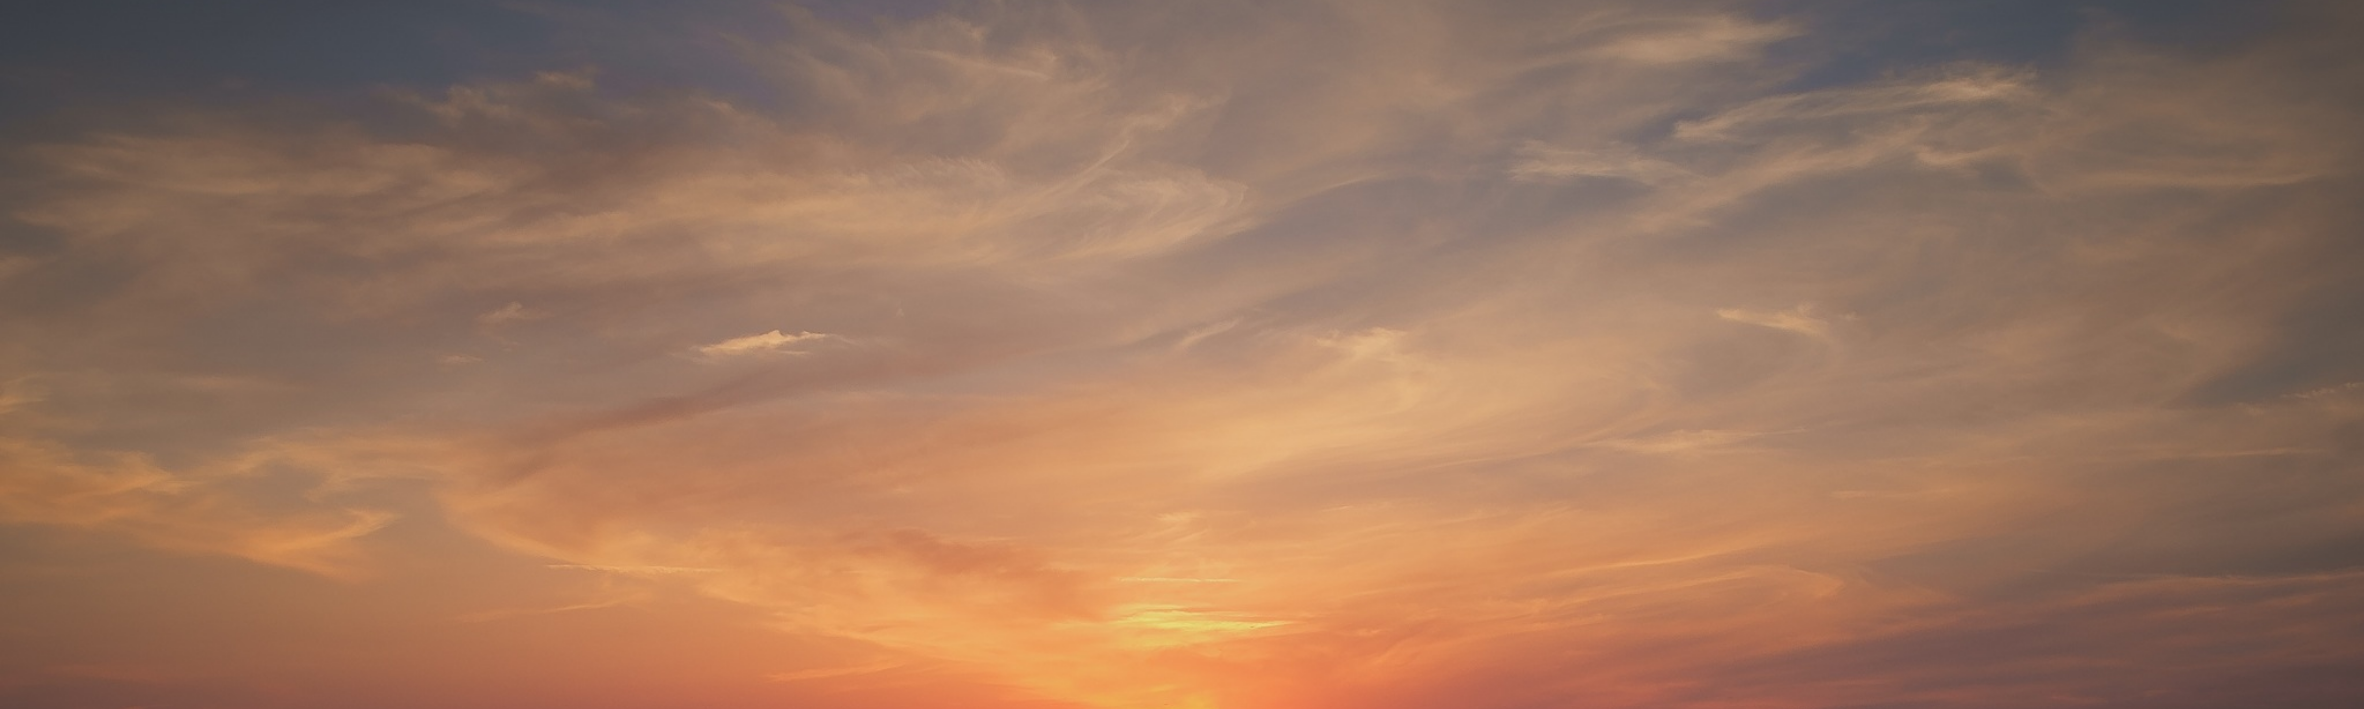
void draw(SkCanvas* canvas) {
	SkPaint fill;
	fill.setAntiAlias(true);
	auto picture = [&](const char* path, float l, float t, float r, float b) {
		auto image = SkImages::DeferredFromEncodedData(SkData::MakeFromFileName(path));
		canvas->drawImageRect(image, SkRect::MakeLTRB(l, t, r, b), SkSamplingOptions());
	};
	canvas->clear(0xFFFFFFFF);
	picture("image0.png", 0, 0, 2364, 709);
}
